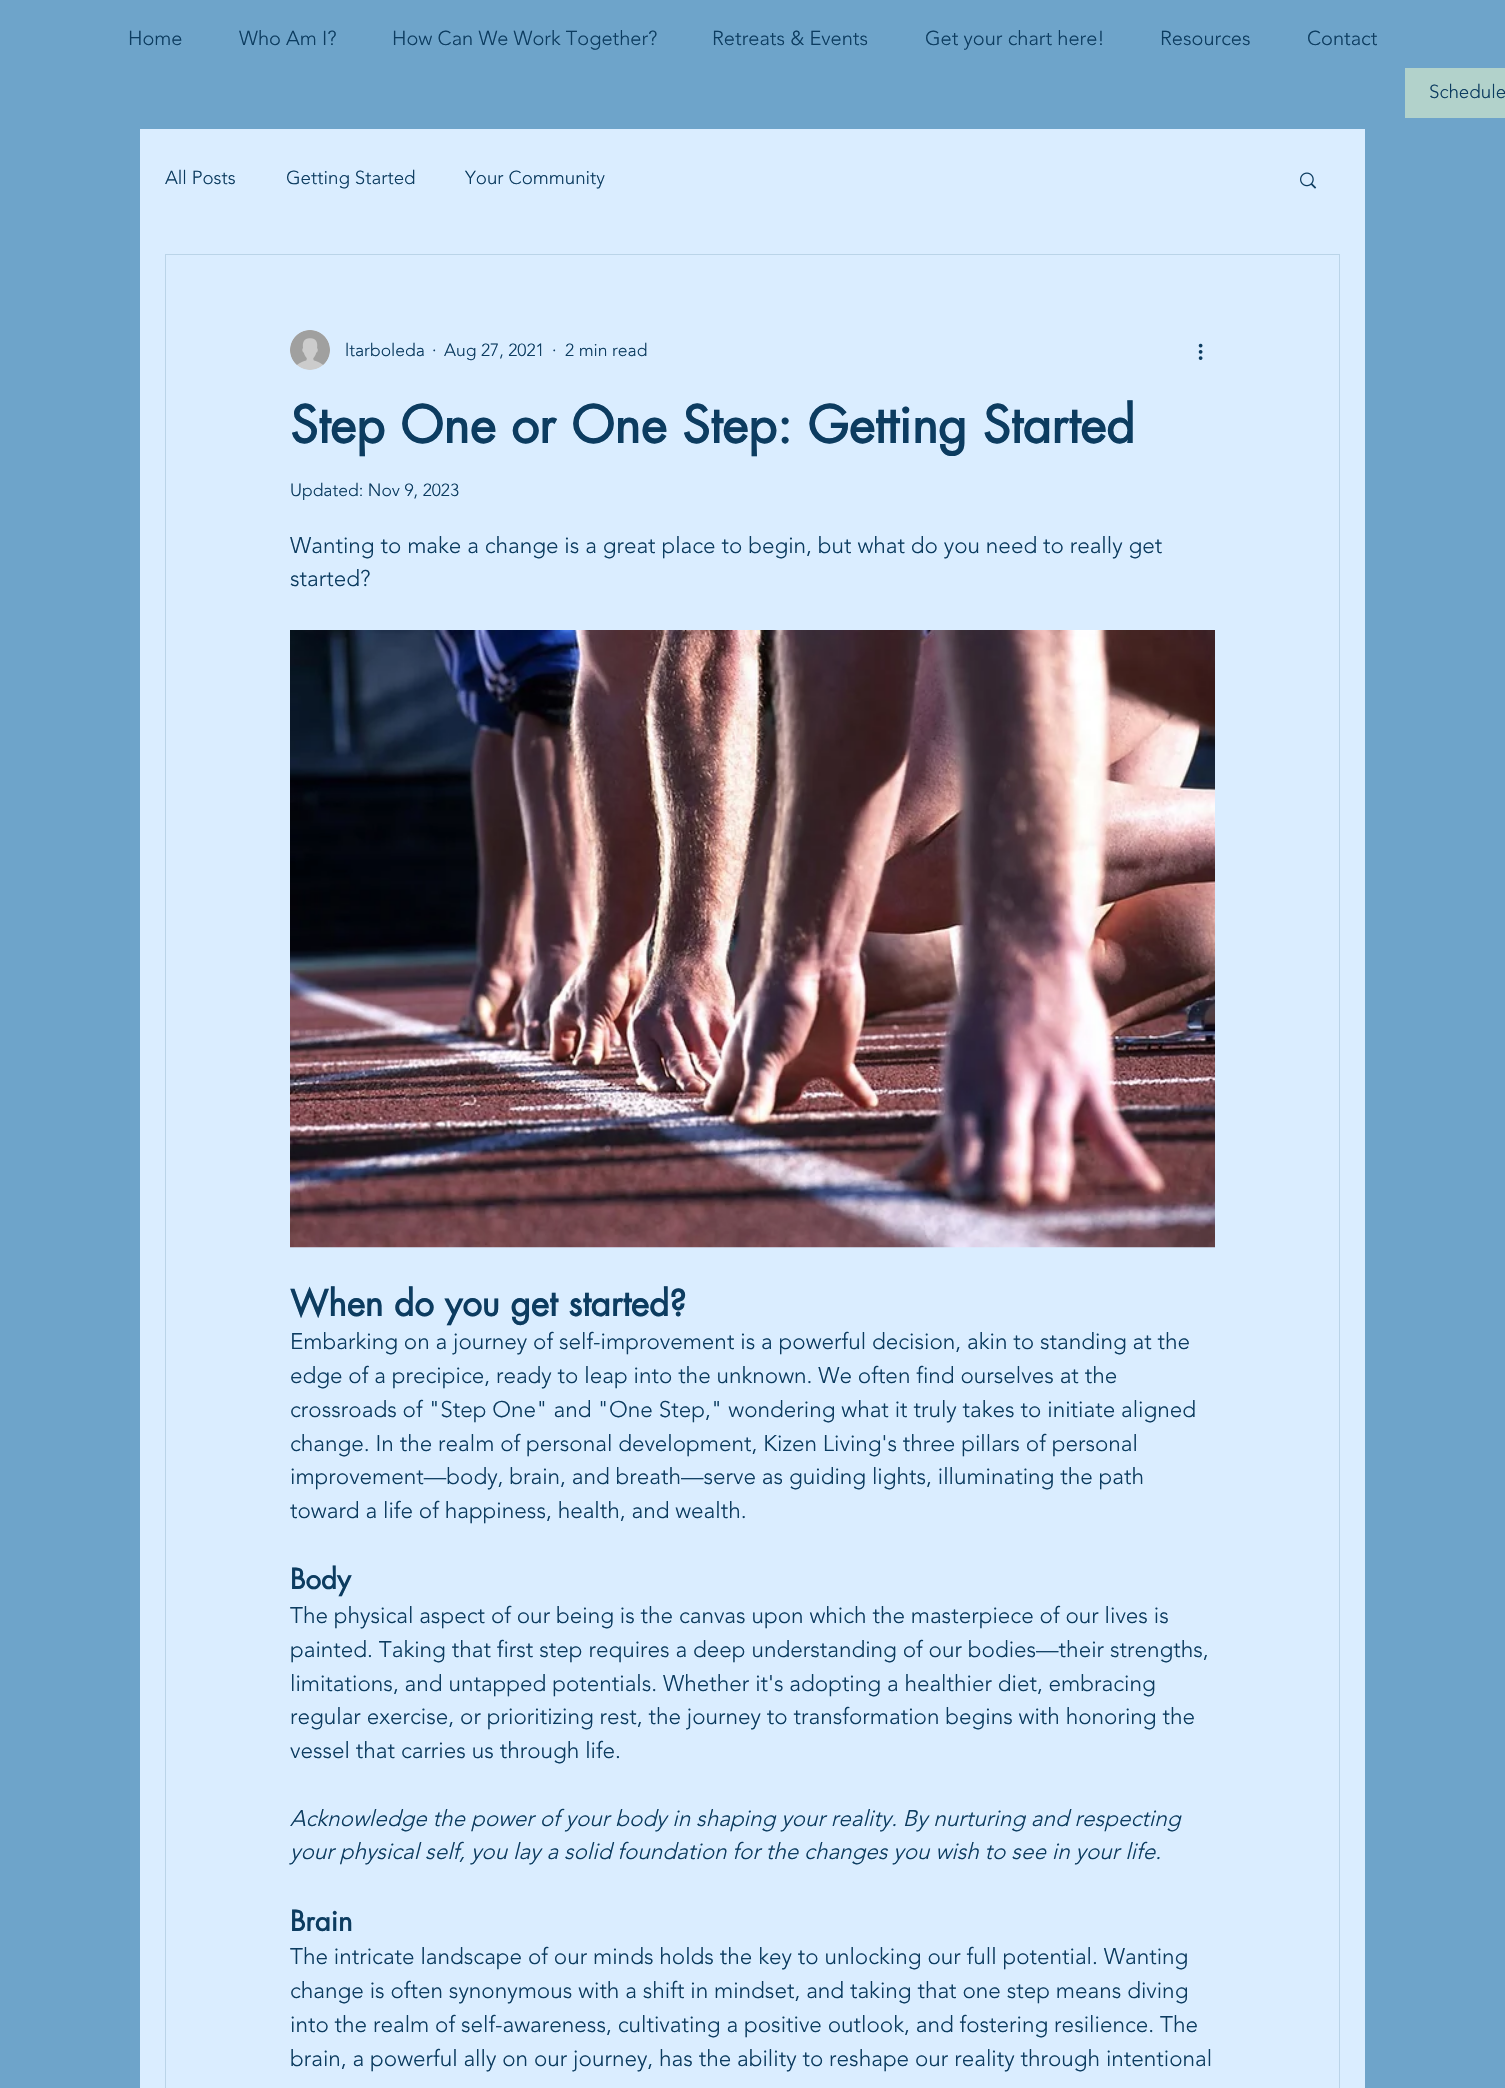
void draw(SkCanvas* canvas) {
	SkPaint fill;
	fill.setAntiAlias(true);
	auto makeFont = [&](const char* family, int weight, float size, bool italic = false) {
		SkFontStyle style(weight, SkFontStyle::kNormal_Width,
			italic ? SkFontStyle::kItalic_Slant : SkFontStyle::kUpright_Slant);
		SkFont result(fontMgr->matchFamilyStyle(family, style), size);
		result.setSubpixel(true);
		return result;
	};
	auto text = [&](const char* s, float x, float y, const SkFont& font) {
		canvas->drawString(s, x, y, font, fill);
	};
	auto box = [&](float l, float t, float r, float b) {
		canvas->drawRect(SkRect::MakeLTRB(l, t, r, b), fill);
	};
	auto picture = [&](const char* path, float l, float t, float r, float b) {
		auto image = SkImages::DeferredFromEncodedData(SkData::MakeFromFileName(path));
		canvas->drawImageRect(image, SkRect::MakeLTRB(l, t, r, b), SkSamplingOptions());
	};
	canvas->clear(0xFF6EA4CA);
	fill.setColor(0xFFB2D2CB);
	box(1405, 68, 1505, 118);
	fill.setColor(0xFFDAEDFF);
	box(140, 129, 1365, 2088);
	picture("image0.png", 1300, 172, 1317, 189);
	fill.setStyle(SkPaint::kStroke_Style);
	fill.setStrokeWidth(1);
	fill.setColor(0xFFBAD4E8);
	canvas->drawRect(SkRect::MakeLTRB(165.5f, 254.5f, 1339.5f, 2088.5f), fill);
	picture("image1.png", 290, 330, 330, 370);
	picture("image2.png", 1198, 343, 1203, 360);
	picture("image3.png", 290, 630, 1215, 1248);
	auto font1 = makeFont("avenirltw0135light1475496", 300, 20);
	fill.setStyle(SkPaint::kFill_Style);
	fill.setColor(0xFF0C3C60);
	text("Home", 128, 45, font1);
	text("Who Am I?", 239, 45, font1);
	text("How Can We Work Together?", 392, 45, font1);
	text("Retreats & Events", 712, 45, font1);
	text("Get your chart here!", 925, 45, font1);
	text("Resources", 1160, 45, font1);
	text("Contact", 1307, 45, font1);
	auto font2 = makeFont("avenirltw0135light1475496", 300, 18.75f);
	text("Schedule", 1429, 98, font2);
	text("All Posts", 165, 184, font2);
	text("Getting Started", 286, 184, font2);
	text("Your Community", 465, 184, font2);
	auto font3 = makeFont("avenirltw0135light1475496", 300, 17.5f);
	text("ltarboleda", 345, 356, font3);
	text("·", 432, 356, font3);
	text("Aug 27, 2021", 444, 356, font3);
	text("·", 552, 356, font3);
	text("2 min read", 565, 356, font3);
	auto font4 = makeFont("futura", 700, 50);
	text("Step One or One Step: Getting Started", 290, 443, font4);
	text("Updated: Nov 9, 2023", 290, 496, font3);
	auto font5 = makeFont("avenirltw0135light1475496", 300, 22.5f);
	text("Wanting to make a change is a great place to begin, but what do you need to really get", 290, 553, font5);
	text("started?", 290, 586, font5);
	auto font6 = makeFont("futura", 700, 35);
	text("When do you get started?", 290, 1316, font6);
	text("Embarking on a journey of self-improvement is a powerful decision, akin to standing at the", 290, 1349, font5);
	text("edge of a precipice, ready to leap into the unknown. We often find ourselves at the", 290, 1383, font5);
	text("crossroads of \"Step One\" and \"One Step,\" wondering what it truly takes to initiate aligned", 290, 1417, font5);
	text("change. In the realm of personal development, Kizen Living's three pillars of personal", 290, 1451, font5);
	text("improvement—body, brain, and breath—serve as guiding lights, illuminating the path", 290, 1484, font5);
	text("toward a life of happiness, health, and wealth.", 290, 1518, font5);
	auto font7 = makeFont("futura", 700, 27.5f);
	text("Body", 290, 1589, font7);
	text("The physical aspect of our being is the canvas upon which the masterpiece of our lives is", 290, 1623, font5);
	text("painted. Taking that first step requires a deep understanding of our bodies—their strengths,", 290, 1657, font5);
	text("limitations, and untapped potentials. Whether it's adopting a healthier diet, embracing", 290, 1691, font5);
	text("regular exercise, or prioritizing rest, the journey to transformation begins with honoring the", 290, 1724, font5);
	text("vessel that carries us through life.", 290, 1758, font5);
	auto font8 = makeFont("avenirltw0135light1475496", 300, 22.5f, true);
	text("Acknowledge the power of your body in shaping your reality. By nurturing and respecting", 290, 1826, font8);
	text("your physical self, you lay a solid foundation for the changes you wish to see in your life.", 290, 1859, font8);
	text("Brain", 290, 1931, font7);
	text("The intricate landscape of our minds holds the key to unlocking our full potential. Wanting", 290, 1964, font5);
	text("change is often synonymous with a shift in mindset, and taking that one step means diving", 290, 1998, font5);
	text("into the realm of self-awareness, cultivating a positive outlook, and fostering resilience. The", 290, 2032, font5);
	text("brain, a powerful ally on our journey, has the ability to reshape our reality through intentional", 290, 2066, font5);
}
